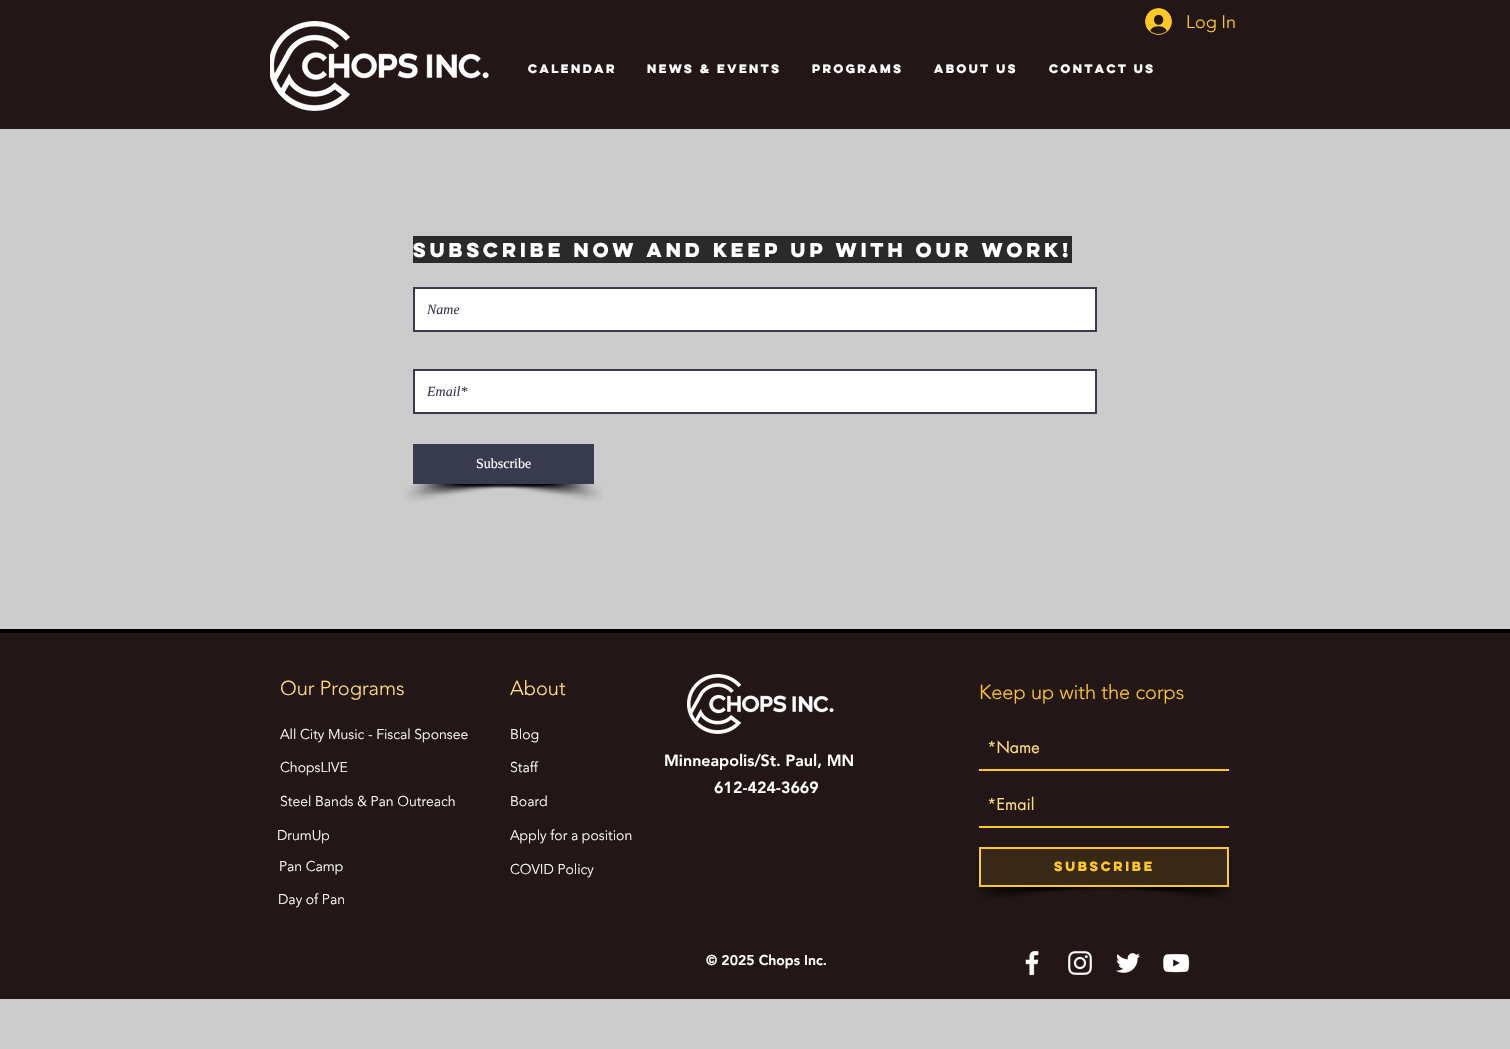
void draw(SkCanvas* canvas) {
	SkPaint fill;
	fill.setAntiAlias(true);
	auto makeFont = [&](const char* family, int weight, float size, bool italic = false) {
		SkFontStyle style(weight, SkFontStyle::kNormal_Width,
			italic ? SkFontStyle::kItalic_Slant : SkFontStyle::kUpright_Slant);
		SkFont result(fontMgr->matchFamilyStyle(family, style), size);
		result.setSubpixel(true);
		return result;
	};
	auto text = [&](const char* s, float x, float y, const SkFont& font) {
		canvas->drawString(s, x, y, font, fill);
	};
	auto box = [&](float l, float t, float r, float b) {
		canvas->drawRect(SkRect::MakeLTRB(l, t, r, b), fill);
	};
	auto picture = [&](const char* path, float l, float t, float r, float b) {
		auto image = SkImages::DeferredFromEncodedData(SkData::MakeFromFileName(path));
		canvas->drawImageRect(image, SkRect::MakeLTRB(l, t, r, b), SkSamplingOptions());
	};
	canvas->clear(0xFFCCCCCC);
	fill.setColor(0xFF221616);
	box(0, 0, 1510, 129);
	picture("image0.png", 270, 21, 489, 111);
	picture("image1.png", 1145, 8, 1172, 35);
	fill.setColor(0xFF2A2A2A);
	box(413, 236, 1072, 263);
	fill.setColor(0xFFFFFFFF);
	canvas->drawRect(SkRect::MakeLTRB(414, 288, 1096, 331), fill);
	fill.setStyle(SkPaint::kStroke_Style);
	fill.setStrokeWidth(2);
	fill.setColor(0xFF373B4D);
	canvas->drawRect(SkRect::MakeLTRB(414, 288, 1096, 331), fill);
	fill.setStyle(SkPaint::kFill_Style);
	fill.setColor(0xFFFFFFFF);
	canvas->drawRect(SkRect::MakeLTRB(414, 370, 1096, 413), fill);
	fill.setStyle(SkPaint::kStroke_Style);
	fill.setColor(0xFF373B4D);
	canvas->drawRect(SkRect::MakeLTRB(414, 370, 1096, 413), fill);
	fill.setStyle(SkPaint::kFill_Style);
	box(413, 444, 594, 484);
	picture("image2.png", 404, 484, 558, 502);
	picture("image3.png", 479, 484, 603, 502);
	fill.setColor(0xFF221616);
	box(0, 633, 1510, 999);
	fill.setColor(0xFF000000);
	box(0, 629, 1510, 633);
	picture("image4.png", 687, 674, 834, 734);
	fill.setColor(0xFFFFC824);
	box(979, 769, 1229, 771);
	box(979, 826, 1229, 828);
	picture("image5.png", 981, 887, 1101, 899);
	picture("image6.png", 1107, 887, 1227, 899);
	fill.setColor(0x99000000);
	fill.setMaskFilter(SkMaskFilter::MakeBlur(kNormal_SkBlurStyle, 2));
	canvas->drawRect(SkRect::MakeLTRB(979, 848, 1229, 888), fill);
	fill.setMaskFilter(nullptr);
	fill.setColor(0xFF382817);
	canvas->drawRect(SkRect::MakeLTRB(980, 848, 1228, 886), fill);
	fill.setStyle(SkPaint::kStroke_Style);
	fill.setColor(0xFFFFC824);
	canvas->drawRect(SkRect::MakeLTRB(980, 848, 1228, 886), fill);
	picture("image7.png", 1025, 950, 1039, 976);
	picture("image8.png", 1068, 951, 1092, 975);
	picture("image9.png", 1116, 953, 1141, 973);
	picture("image10.png", 1163, 954, 1190, 973);
	auto font1 = makeFont("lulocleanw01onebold", 700, 11);
	fill.setStyle(SkPaint::kFill_Style);
	fill.setColor(0xFFFFFFFF);
	text("CALENDAR", 528, 73, font1);
	text("NEWS & EVENTS", 647, 73, font1);
	text("PROGRAMS", 812, 73, font1);
	text("ABOUT US", 934, 73, font1);
	text("CONTACT US", 1049, 73, font1);
	auto font2 = makeFont("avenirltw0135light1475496", 300, 18);
	fill.setColor(0xFFFFC824);
	text("Log In", 1186, 28, font2);
	auto font3 = makeFont("lulocleanw01onebold", 700, 18);
	fill.setColor(0xFFFFFFFF);
	text("Subscribe now and keep up with Our work!", 413, 257, font3);
	auto font4 = makeFont("Liberation Serif", 400, 14, true);
	fill.setColor(0xFF373B4D);
	text("Name", 427, 314, font4);
	text("Email*", 427, 396, font4);
	auto font5 = makeFont("Liberation Serif", 400, 14);
	fill.setColor(0xFFFFFFFF);
	text("Subscribe", 476, 468, font5);
	auto font6 = makeFont("avenirltw0135light1475496", 300, 20);
	fill.setColor(0xFFFFDE7A);
	text("Our Programs", 280, 695, font6);
	text("About", 510, 695, font6);
	fill.setColor(0xFFFFC824);
	text("Keep up with the corps", 979, 699, font6);
	auto font7 = makeFont("avenirltw0135light1475496", 300, 14);
	fill.setColor(0xFFFFFFFF);
	text("All City Music - Fiscal Sponsee", 280, 739, font7);
	text("ChopsLIVE", 280, 772, font7);
	text("Steel Bands & Pan Outreach", 280, 806, font7);
	text("DrumUp", 277, 840, font7);
	text("Pan Camp", 279, 871, font7);
	text("Day of Pan", 278, 904, font7);
	text("Blog", 510, 739, font7);
	text("Staff", 510, 772, font7);
	text("Board", 510, 806, font7);
	text("Apply for a position", 510, 840, font7);
	text("COVID Policy", 510, 874, font7);
	auto font8 = makeFont("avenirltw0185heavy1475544", 900, 16);
	text("Minneapolis/St. Paul, MN", 664, 766, font8);
	text("612-424-3669", 714, 793, font8);
	auto font9 = makeFont("futura", 400, 16);
	fill.setColor(0xFFFFDE7A);
	text("*Name", 987, 753, font9);
	text("*Email", 987, 810, font9);
	auto font10 = makeFont("lulocleanw01onebold", 700, 12);
	fill.setColor(0xFFFFC824);
	text("Subscribe", 1054, 871, font10);
	auto font11 = makeFont("avenirltw0185heavy1475544", 900, 14);
	fill.setColor(0xFFFFFFFF);
	text("© 2025 Chops Inc.", 706, 965, font11);
}
